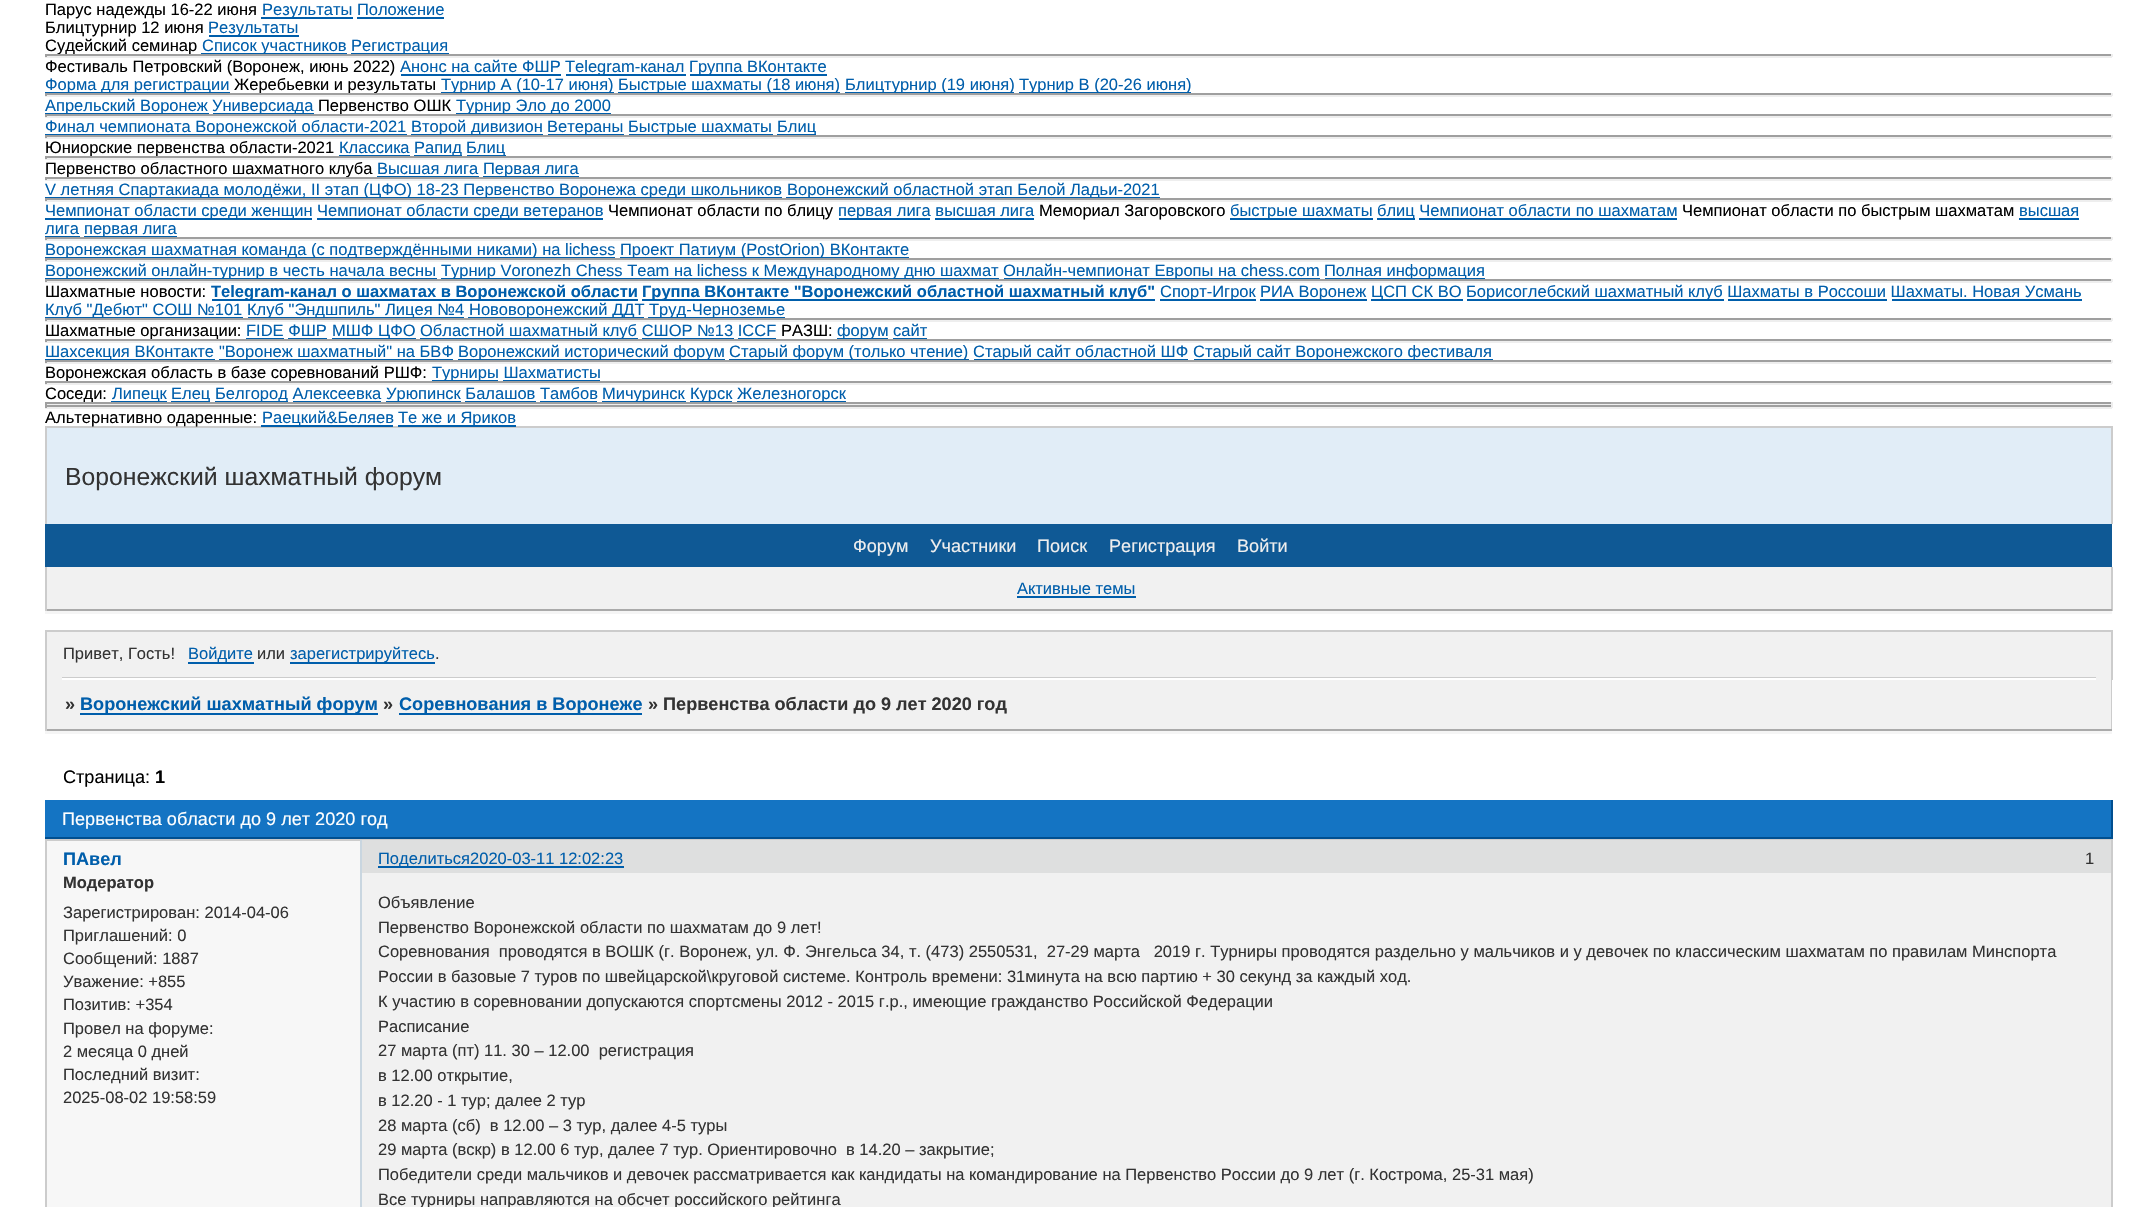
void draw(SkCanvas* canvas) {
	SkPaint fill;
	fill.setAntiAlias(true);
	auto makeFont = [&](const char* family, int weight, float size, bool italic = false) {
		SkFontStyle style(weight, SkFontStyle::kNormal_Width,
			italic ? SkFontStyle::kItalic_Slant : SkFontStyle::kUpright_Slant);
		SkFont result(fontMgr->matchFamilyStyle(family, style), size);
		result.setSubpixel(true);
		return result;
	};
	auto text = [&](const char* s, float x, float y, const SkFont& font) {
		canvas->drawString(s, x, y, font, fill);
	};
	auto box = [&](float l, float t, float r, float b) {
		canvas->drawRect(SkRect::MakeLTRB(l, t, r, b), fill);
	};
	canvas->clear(0xFFFFFFFF);
	fill.setColor(0xFF005EAB);
	box(261, 17, 353, 19);
	box(357, 17, 444, 19);
	box(209, 35, 299, 37);
	box(201, 53, 347, 54);
	box(351, 53, 449, 54);
	box(401, 74, 561, 76);
	box(566, 74, 686, 76);
	box(690, 74, 827, 76);
	box(45, 92, 230, 93);
	box(441, 92, 614, 93);
	box(618, 92, 840, 93);
	box(845, 92, 1014, 93);
	box(1019, 92, 1191, 93);
	box(45, 113, 209, 114);
	box(213, 113, 314, 114);
	box(456, 113, 611, 114);
	box(45, 134, 407, 135);
	box(411, 134, 543, 135);
	box(548, 134, 624, 135);
	box(629, 134, 773, 135);
	box(777, 134, 816, 135);
	box(339, 155, 410, 156);
	box(414, 155, 462, 156);
	box(467, 155, 506, 156);
	box(377, 176, 479, 177);
	box(483, 176, 579, 177);
	box(45, 197, 782, 198);
	box(786, 197, 1160, 198);
	box(45, 218, 312, 220);
	box(317, 218, 603, 220);
	box(839, 218, 930, 220);
	box(1230, 218, 1373, 220);
	box(1377, 218, 1415, 220);
	box(2019, 218, 2079, 220);
	box(935, 218, 1034, 220);
	box(1419, 218, 1677, 220);
	box(45, 236, 80, 237);
	box(84, 236, 177, 237);
	box(45, 257, 615, 258);
	box(620, 257, 909, 258);
	box(45, 278, 437, 279);
	box(441, 278, 999, 279);
	box(1004, 278, 1320, 279);
	box(1325, 278, 1485, 279);
	box(212, 299, 638, 301);
	box(642, 299, 1155, 301);
	box(1160, 299, 1256, 301);
	box(1260, 299, 1367, 301);
	box(1371, 299, 1463, 301);
	box(1467, 299, 1724, 301);
	box(1728, 299, 1887, 301);
	box(1892, 299, 2082, 301);
	box(45, 317, 243, 318);
	box(248, 317, 464, 318);
	box(468, 317, 644, 318);
	box(648, 317, 785, 318);
	box(246, 338, 284, 339);
	box(332, 338, 416, 339);
	box(420, 338, 638, 339);
	box(837, 338, 888, 339);
	box(288, 338, 327, 339);
	box(642, 338, 734, 339);
	box(738, 338, 776, 339);
	box(893, 338, 927, 339);
	box(45, 359, 215, 360);
	box(219, 359, 453, 360);
	box(458, 359, 725, 360);
	box(729, 359, 969, 360);
	box(974, 359, 1188, 360);
	box(1194, 359, 1493, 360);
	box(432, 380, 498, 381);
	box(503, 380, 600, 381);
	box(111, 401, 167, 402);
	box(171, 401, 210, 402);
	box(215, 401, 288, 402);
	box(386, 401, 461, 402);
	box(602, 401, 686, 402);
	box(690, 401, 732, 402);
	box(737, 401, 846, 402);
	box(293, 401, 381, 402);
	box(465, 401, 536, 402);
	box(540, 401, 597, 402);
	fill.setColor(0xFF9F9F9F);
	box(45, 405, 2112, 407);
	fill.setColor(0xFFEEEEEE);
	box(2111, 405, 2113, 408);
	box(45, 407, 2112, 409);
	fill.setColor(0xFF9F9F9F);
	box(45, 405, 47, 408);
	fill.setColor(0xFFCCCCCC);
	box(45, 426, 2112, 428);
	fill.setColor(0xFF005EAB);
	box(261, 425, 393, 427);
	box(398, 425, 516, 427);
	fill.setColor(0xFFE1EDF7);
	box(47, 428, 2111, 524);
	fill.setColor(0xFFCCCCCC);
	box(2111, 426, 2113, 524);
	box(45, 426, 47, 524);
	fill.setColor(0xFF0F5995);
	box(45, 524, 2112, 567);
	fill.setColor(0xFFF5F5F5);
	box(45, 611, 2112, 614);
	fill.setColor(0xFFF1F1F1);
	box(47, 567, 2111, 609);
	fill.setColor(0xFFCCCCCC);
	box(2111, 567, 2113, 611);
	fill.setColor(0xFFAAAAAA);
	box(45, 609, 2112, 611);
	fill.setColor(0xFFCCCCCC);
	box(45, 567, 47, 611);
	fill.setColor(0xFF005EAB);
	box(1017, 596, 1136, 598);
	fill.setColor(0xFFF1F1F1);
	box(47, 632, 2111, 677);
	fill.setColor(0xFFCCCCCC);
	box(45, 630, 2112, 632);
	box(2111, 630, 2113, 680);
	box(45, 630, 47, 680);
	fill.setColor(0xFF005EAB);
	box(188, 662, 254, 664);
	box(290, 662, 435, 664);
	fill.setColor(0xFFF1F1F1);
	box(47, 677, 2111, 729);
	fill.setColor(0xFFCCCCCC);
	box(62, 677, 2096, 678);
	fill.setColor(0xFFFFFFFF);
	box(62, 678, 2096, 680);
	fill.setColor(0xFFF5F5F5);
	box(45, 731, 2112, 734);
	fill.setColor(0xFFCCCCCC);
	box(2111, 677, 2112, 731);
	fill.setColor(0xFFAAAAAA);
	box(45, 729, 2112, 731);
	fill.setColor(0xFFCCCCCC);
	box(45, 677, 47, 731);
	fill.setColor(0xFF005EAB);
	box(80, 713, 378, 715);
	box(399, 713, 642, 715);
	fill.setColor(0xFF1474C3);
	box(45, 800, 2111, 837);
	fill.setColor(0xFF004F90);
	box(2111, 800, 2113, 839);
	box(45, 837, 2112, 839);
	fill.setColor(0xFFF1F1F1);
	box(362, 873, 2111, 1207);
	fill.setColor(0xFFF7F7F7);
	box(47, 841, 360, 1207);
	fill.setColor(0xFFCCCCCC);
	box(45, 839, 2112, 841);
	box(2111, 839, 2113, 1207);
	box(45, 839, 47, 1207);
	fill.setColor(0xFFDEDFDF);
	box(362, 840, 2111, 873);
	fill.setColor(0xFFC9D6E0);
	box(360, 840, 362, 1207);
	fill.setColor(0xFF005EAB);
	box(378, 866, 624, 868);
	auto font1 = makeFont("Liberation Sans", 400, 16.5f);
	fill.setColor(0xFF000000);
	text("Парус надежды 16-22 июня", 45, 15, font1);
	fill.setColor(0xFF005EAB);
	text("Результаты Положение", 262, 15, font1);
	fill.setColor(0xFF000000);
	text("Блицтурнир 12 июня", 45, 33, font1);
	fill.setColor(0xFF005EAB);
	text("Результаты", 208, 33, font1);
	fill.setColor(0xFF000000);
	text("Судейский семинар", 45, 51, font1);
	fill.setColor(0xFF005EAB);
	text("Список участников", 202, 51, font1);
	text("Регистрация", 351, 51, font1);
	fill.setColor(0xFF9F9F9F);
	box(45, 54, 2112, 56);
	fill.setColor(0xFFEEEEEE);
	box(2111, 54, 2113, 57);
	box(45, 56, 2112, 58);
	fill.setColor(0xFF9F9F9F);
	box(45, 54, 47, 57);
	fill.setColor(0xFF000000);
	text("Фестиваль Петровский (Воронеж, июнь 2022)", 45, 72, font1);
	fill.setColor(0xFF005EAB);
	text("Анонс на сайте ФШР", 400, 72, font1);
	text("Telegram-канал", 565, 72, font1);
	text("Группа ВКонтакте", 689, 72, font1);
	text("Форма для регистрации", 45, 90, font1);
	fill.setColor(0xFF000000);
	text("Жеребьевки и результаты", 234, 90, font1);
	fill.setColor(0xFF005EAB);
	text("Турнир A (10-17 июня)", 441, 90, font1);
	text("Быстрые шахматы (18 июня)", 618, 90, font1);
	text("Блицтурнир (19 июня)", 845, 90, font1);
	text("Турнир B (20-26 июня)", 1019, 90, font1);
	fill.setColor(0xFF9F9F9F);
	box(45, 93, 2112, 95);
	fill.setColor(0xFFEEEEEE);
	box(2111, 93, 2113, 96);
	box(45, 95, 2112, 97);
	fill.setColor(0xFF9F9F9F);
	box(45, 93, 47, 96);
	fill.setColor(0xFF005EAB);
	text("Апрельский Воронеж", 45, 111, font1);
	text("Универсиада", 212, 111, font1);
	fill.setColor(0xFF000000);
	text("Первенство ОШК", 318, 111, font1);
	fill.setColor(0xFF005EAB);
	text("Турнир Эло до 2000", 456, 111, font1);
	fill.setColor(0xFF9F9F9F);
	box(45, 114, 2112, 116);
	fill.setColor(0xFFEEEEEE);
	box(2111, 114, 2113, 117);
	box(45, 116, 2112, 118);
	fill.setColor(0xFF9F9F9F);
	box(45, 114, 47, 117);
	fill.setColor(0xFF005EAB);
	text("Финал чемпионата Воронежской области-2021", 45, 132, font1);
	text("Второй дивизион", 411, 132, font1);
	text("Ветераны", 547, 132, font1);
	text("Быстрые шахматы", 628, 132, font1);
	text("Блиц", 777, 132, font1);
	fill.setColor(0xFF9F9F9F);
	box(45, 135, 2112, 137);
	fill.setColor(0xFFEEEEEE);
	box(2111, 135, 2113, 138);
	box(45, 137, 2112, 139);
	fill.setColor(0xFF9F9F9F);
	box(45, 135, 47, 138);
	fill.setColor(0xFF000000);
	text("Юниорские первенства области-2021", 45, 153, font1);
	fill.setColor(0xFF005EAB);
	text("Классика", 339, 153, font1);
	text("Рапид", 414, 153, font1);
	text("Блиц", 466, 153, font1);
	fill.setColor(0xFF9F9F9F);
	box(45, 156, 2112, 158);
	fill.setColor(0xFFEEEEEE);
	box(2111, 156, 2113, 159);
	box(45, 158, 2112, 160);
	fill.setColor(0xFF9F9F9F);
	box(45, 156, 47, 159);
	fill.setColor(0xFF000000);
	text("Первенство областного шахматного клуба", 45, 174, font1);
	fill.setColor(0xFF005EAB);
	text("Высшая лига", 377, 174, font1);
	text("Первая лига", 483, 174, font1);
	fill.setColor(0xFF9F9F9F);
	box(45, 177, 2112, 179);
	fill.setColor(0xFFEEEEEE);
	box(2111, 177, 2113, 180);
	box(45, 179, 2112, 181);
	fill.setColor(0xFF9F9F9F);
	box(45, 177, 47, 180);
	fill.setColor(0xFF005EAB);
	text("V летняя Спартакиада молодёжи, II этап (ЦФО) 18-23 Первенство Воронежа среди школьников", 45, 195, font1);
	text("Воронежский областной этап Белой Ладьи-2021", 787, 195, font1);
	fill.setColor(0xFF9F9F9F);
	box(45, 198, 2112, 200);
	fill.setColor(0xFFEEEEEE);
	box(2111, 198, 2113, 201);
	box(45, 200, 2112, 202);
	fill.setColor(0xFF9F9F9F);
	box(45, 198, 47, 201);
	fill.setColor(0xFF005EAB);
	text("Чемпионат области среди женщин", 45, 216, font1);
	text("Чемпионат области среди ветеранов", 317, 216, font1);
	fill.setColor(0xFF000000);
	text("Чемпионат области по блицу", 608, 216, font1);
	fill.setColor(0xFF005EAB);
	text("первая лига высшая лига", 838, 216, font1);
	fill.setColor(0xFF000000);
	text("Мемориал Загоровского", 1039, 216, font1);
	fill.setColor(0xFF005EAB);
	text("быстрые шахматы", 1230, 216, font1);
	text("блиц Чемпионат области по шахматам", 1377, 216, font1);
	fill.setColor(0xFF000000);
	text("Чемпионат области по быстрым шахматам", 1682, 216, font1);
	fill.setColor(0xFF005EAB);
	text("высшая", 2019, 216, font1);
	text("лига", 45, 234, font1);
	text("первая лига", 84, 234, font1);
	fill.setColor(0xFF9F9F9F);
	box(45, 237, 2112, 239);
	fill.setColor(0xFFEEEEEE);
	box(2111, 237, 2113, 240);
	box(45, 239, 2112, 241);
	fill.setColor(0xFF9F9F9F);
	box(45, 237, 47, 240);
	fill.setColor(0xFF005EAB);
	text("Воронежская шахматная команда (с подтверждёнными никами) на lichess", 45, 255, font1);
	text("Проект Патиум (PostOrion) ВКонтакте", 620, 255, font1);
	fill.setColor(0xFF9F9F9F);
	box(45, 258, 2112, 260);
	fill.setColor(0xFFEEEEEE);
	box(2111, 258, 2113, 261);
	box(45, 260, 2112, 262);
	fill.setColor(0xFF9F9F9F);
	box(45, 258, 47, 261);
	fill.setColor(0xFF005EAB);
	text("Воронежский онлайн-турнир в честь начала весны", 45, 276, font1);
	text("Турнир Voronezh Chess Team на lichess к Международному дню шахмат", 441, 276, font1);
	text("Онлайн-чемпионат Европы на chess.com", 1003, 276, font1);
	text("Полная информация", 1324, 276, font1);
	fill.setColor(0xFF9F9F9F);
	box(45, 279, 2112, 281);
	fill.setColor(0xFFEEEEEE);
	box(2111, 279, 2113, 282);
	box(45, 281, 2112, 283);
	fill.setColor(0xFF9F9F9F);
	box(45, 279, 47, 282);
	fill.setColor(0xFF000000);
	text("Шахматные новости:", 45, 297, font1);
	auto font2 = makeFont("Liberation Sans", 700, 16.5f);
	fill.setColor(0xFF005EAB);
	text("Telegram-канал о шахматах в Воронежской области", 211, 297, font2);
	text("Группа ВКонтакте \"Воронежский областной шахматный клуб\"", 642, 297, font2);
	text("Спорт-Игрок", 1160, 297, font1);
	text("РИА Воронеж", 1260, 297, font1);
	text("ЦСП СК ВО", 1371, 297, font1);
	text("Борисоглебский шахматный клуб Шахматы в Россоши Шахматы. Новая Усмань", 1466, 297, font1);
	text("Клуб \"Дебют\" СОШ №101", 45, 315, font1);
	text("Клуб \"Эндшпиль\" Лицея №4", 247, 315, font1);
	text("Нововоронежский ДДТ", 469, 315, font1);
	text("Труд-Черноземье", 649, 315, font1);
	fill.setColor(0xFF9F9F9F);
	box(45, 318, 2112, 320);
	fill.setColor(0xFFEEEEEE);
	box(2111, 318, 2113, 321);
	box(45, 320, 2112, 322);
	fill.setColor(0xFF9F9F9F);
	box(45, 318, 47, 321);
	fill.setColor(0xFF000000);
	text("Шахматные организации:", 45, 336, font1);
	fill.setColor(0xFF005EAB);
	text("FIDE ФШР", 246, 336, font1);
	text("МШФ ЦФО", 332, 336, font1);
	text("Областной шахматный клуб СШОР №13 ICCF", 420, 336, font1);
	fill.setColor(0xFF000000);
	text("РАЗШ:", 781, 336, font1);
	fill.setColor(0xFF005EAB);
	text("форум сайт", 837, 336, font1);
	fill.setColor(0xFF9F9F9F);
	box(45, 339, 2112, 341);
	fill.setColor(0xFFEEEEEE);
	box(2111, 339, 2113, 342);
	box(45, 341, 2112, 343);
	fill.setColor(0xFF9F9F9F);
	box(45, 339, 47, 342);
	fill.setColor(0xFF005EAB);
	text("Шахсекция ВКонтакте", 45, 357, font1);
	text("\"Воронеж шахматный\" на БВФ", 219, 357, font1);
	text("Воронежский исторический форум", 458, 357, font1);
	text("Cтарый форум (только чтение)", 729, 357, font1);
	text("Старый сайт областной ШФ", 973, 357, font1);
	text("Старый сайт Воронежского фестиваля", 1193, 357, font1);
	fill.setColor(0xFF9F9F9F);
	box(45, 360, 2112, 362);
	fill.setColor(0xFFEEEEEE);
	box(2111, 360, 2113, 363);
	box(45, 362, 2112, 364);
	fill.setColor(0xFF9F9F9F);
	box(45, 360, 47, 363);
	fill.setColor(0xFF000000);
	text("Воронежская область в базе соревнований РШФ:", 45, 378, font1);
	fill.setColor(0xFF005EAB);
	text("Турниры Шахматисты", 432, 378, font1);
	fill.setColor(0xFF9F9F9F);
	box(45, 381, 2112, 383);
	fill.setColor(0xFFEEEEEE);
	box(2111, 381, 2113, 384);
	box(45, 383, 2112, 385);
	fill.setColor(0xFF9F9F9F);
	box(45, 381, 47, 384);
	fill.setColor(0xFF000000);
	text("Соседи:", 45, 399, font1);
	fill.setColor(0xFF005EAB);
	text("Липецк", 112, 399, font1);
	text("Елец", 171, 399, font1);
	text("Белгород Алексеевка", 215, 399, font1);
	text("Урюпинск Балашов Тамбов", 386, 399, font1);
	text("Мичуринск", 602, 399, font1);
	text("Курск", 690, 399, font1);
	text("Железногорск", 737, 399, font1);
	fill.setColor(0xFF9F9F9F);
	box(45, 402, 2112, 404);
	fill.setColor(0xFFEEEEEE);
	box(2111, 402, 2113, 405);
	box(45, 404, 2112, 405);
	fill.setColor(0xFF9F9F9F);
	box(45, 402, 47, 405);
	fill.setColor(0xFF000000);
	text("Альтернативно одаренные:", 45, 423, font1);
	fill.setColor(0xFF005EAB);
	text("Раецкий&Беляев", 262, 423, font1);
	text("Те же и Яриков", 398, 423, font1);
	auto font3 = makeFont("Liberation Sans", 400, 24.75f);
	fill.setColor(0xFF333333);
	text("Воронежский шахматный форум", 65, 485, font3);
	auto font4 = makeFont("Liberation Sans", 400, 18.1f);
	fill.setColor(0xFFEEEEEE);
	text("Форум", 853, 552, font4);
	text("Участники", 930, 552, font4);
	text("Поиск", 1037, 552, font4);
	text("Регистрация", 1109, 552, font4);
	text("Войти", 1237, 552, font4);
	fill.setColor(0xFF005EAB);
	text("Активные темы", 1017, 594, font1);
	fill.setColor(0xFF333333);
	text("Привет, Гость!", 63, 659, font1);
	fill.setColor(0xFF005EAB);
	text("Войдите", 188, 659, font1);
	fill.setColor(0xFF333333);
	text("или", 257, 659, font1);
	fill.setColor(0xFF005EAB);
	text("зарегистрируйтесь", 290, 659, font1);
	fill.setColor(0xFF333333);
	text(".", 435, 659, font1);
	auto font5 = makeFont("Liberation Sans", 700, 18.1f);
	text("»", 65, 710, font5);
	fill.setColor(0xFF005EAB);
	text("Воронежский шахматный форум", 80, 710, font5);
	fill.setColor(0xFF333333);
	text("»", 383, 710, font5);
	fill.setColor(0xFF005EAB);
	text("Соревнования в Воронеже", 399, 710, font5);
	fill.setColor(0xFF333333);
	text("» Первенства области до 9 лет 2020 год", 648, 710, font5);
	fill.setColor(0xFF000000);
	text("Страница:", 63, 783, font4);
	text("1", 155, 783, font5);
	fill.setColor(0xFFFFFFFF);
	text("Первенства области до 9 лет 2020 год", 62, 825, font4);
	fill.setColor(0xFF005EAB);
	text("ПАвел", 63, 865, font5);
	fill.setColor(0xFF333333);
	text("Модератор", 63, 888, font2);
	text("Зарегистрирован: 2014-04-06", 63, 918, font1);
	text("Приглашений: 0", 63, 941, font1);
	text("Сообщений: 1887", 63, 964, font1);
	text("Уважение: +855", 63, 987, font1);
	text("Позитив: +354", 63, 1010, font1);
	text("Провел на форуме:", 63, 1034, font1);
	text("2 месяца 0 дней", 63, 1057, font1);
	text("Последний визит:", 63, 1080, font1);
	text("2025-08-02 19:58:59", 63, 1103, font1);
	text("Объявление", 378, 908, font1);
	text("Первенство Воронежской области по шахматам до 9 лет!", 378, 933, font1);
	text("Соревнования  проводятся в ВОШК (г. Воронеж, ул. Ф. Энгельса 34, т. (473) 2550531,  27-29 марта   2019 г. Турниры проводятся раздельно у мальчиков и у девочек по классическим шахматам по правилам Минспорта", 378, 957, font1);
	text("России в базовые 7 туров по швейцарской\\круговой системе. Контроль времени: 31минута на всю партию + 30 секунд за каждый ход.", 378, 982, font1);
	text("К участию в соревновании допускаются спортсмены 2012 - 2015 г.р., имеющие гражданство Российской Федерации", 378, 1007, font1);
	text("Расписание", 378, 1032, font1);
	text("27 марта (пт) 11. 30 – 12.00  регистрация", 378, 1056, font1);
	text("в 12.00 открытие,", 378, 1081, font1);
	text("в 12.20 - 1 тур; далее 2 тур", 378, 1106, font1);
	text("28 марта (сб)  в 12.00 – 3 тур, далее 4-5 туры", 378, 1131, font1);
	text("29 марта (вскр) в 12.00 6 тур, далее 7 тур. Ориентировочно  в 14.20 – закрытие;", 378, 1155, font1);
	text("Победители среди мальчиков и девочек рассматривается как кандидаты на командирование на Первенство России до 9 лет (г. Кострома, 25-31 мая)", 378, 1180, font1);
	text("Все турниры направляются на обсчет российского рейтинга", 378, 1205, font1);
	fill.setColor(0xFF005EAB);
	text("Поделиться2020-03-11 12:02:23", 378, 864, font1);
	fill.setColor(0xFF333333);
	text("1", 2085, 864, font1);
}
